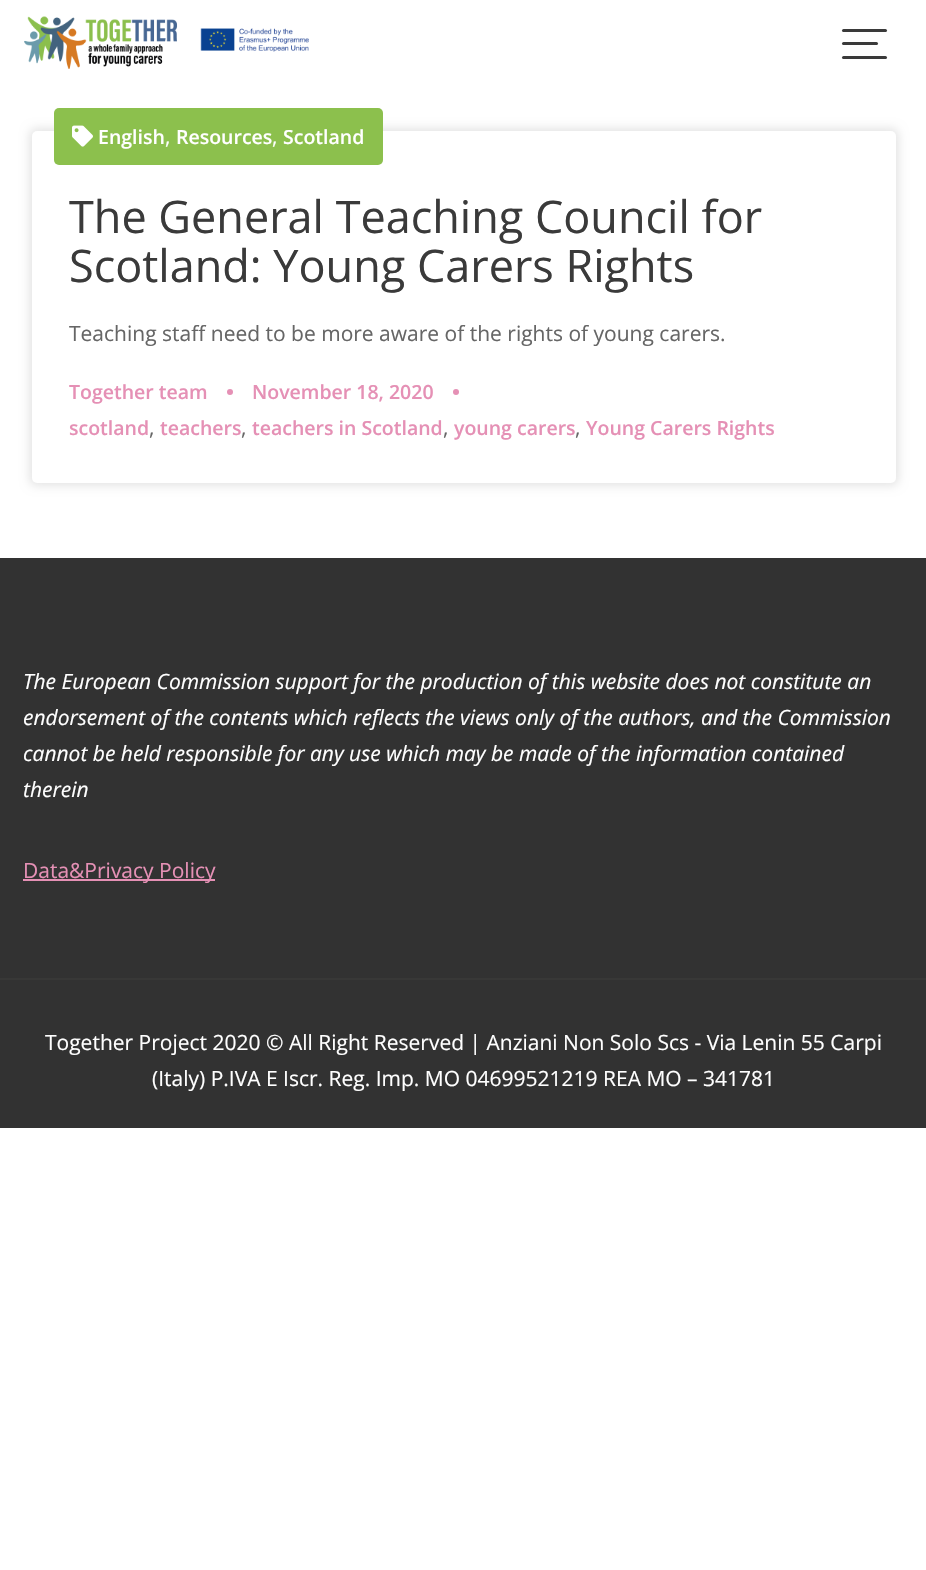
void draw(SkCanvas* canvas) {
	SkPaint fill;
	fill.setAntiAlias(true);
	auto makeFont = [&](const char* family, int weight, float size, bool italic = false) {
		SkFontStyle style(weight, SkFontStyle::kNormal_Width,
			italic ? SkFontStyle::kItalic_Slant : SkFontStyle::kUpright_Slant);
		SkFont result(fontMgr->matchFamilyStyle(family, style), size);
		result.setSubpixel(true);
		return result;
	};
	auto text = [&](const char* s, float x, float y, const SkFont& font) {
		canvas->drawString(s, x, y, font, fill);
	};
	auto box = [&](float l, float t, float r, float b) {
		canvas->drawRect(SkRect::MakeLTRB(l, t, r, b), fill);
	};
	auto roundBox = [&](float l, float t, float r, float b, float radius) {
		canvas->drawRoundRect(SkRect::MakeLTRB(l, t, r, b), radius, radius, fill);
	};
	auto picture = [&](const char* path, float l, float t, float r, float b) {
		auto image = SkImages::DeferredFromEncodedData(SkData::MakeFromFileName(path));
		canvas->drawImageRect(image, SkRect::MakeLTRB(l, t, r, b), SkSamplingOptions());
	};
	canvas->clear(0xFFFFFFFF);
	picture("image0.png", 24, 16, 309, 69);
	fill.setColor(0xFF3A3A3A);
	roundBox(842, 29, 887, 32, 1.5f);
	roundBox(842, 42, 878, 45, 1.5f);
	roundBox(842, 56, 887, 59, 1.5f);
	fill.setColor(0x1A000000);
	fill.setMaskFilter(SkMaskFilter::MakeBlur(kNormal_SkBlurStyle, 5));
	canvas->drawRoundRect(SkRect::MakeLTRB(29, 128, 899, 486), 8, 8, fill);
	fill.setMaskFilter(nullptr);
	fill.setColor(0xFFFFFFFF);
	roundBox(32, 131, 896, 483, 5);
	fill.setColor(0xFF8CC04D);
	roundBox(54, 108, 383, 165, 5);
	picture("image1.png", 72, 125, 93, 147);
	fill.setColor(0xFFE590B5);
	canvas->drawCircle(230, 392, 3, fill);
	canvas->drawCircle(456, 392, 3, fill);
	fill.setColor(0xFF323232);
	box(0, 558, 926, 1128);
	fill.setColor(0xFFE590B5);
	box(23, 879, 215, 881);
	fill.setColor(0xFF383837);
	box(0, 978, 926, 980);
	auto font1 = makeFont("Open Sans", 600, 19.5f);
	fill.setColor(0xFFFFFFFF);
	text("English", 98, 144, font1);
	auto font2 = makeFont("Open Sans", 400, 21);
	text(",", 165, 144, font2);
	text("Resources", 176, 144, font1);
	text(",", 272, 144, font2);
	text("Scotland", 283, 144, font1);
	auto font3 = makeFont("Open Sans", 400, 45);
	fill.setColor(0xFF3A3A3A);
	text("The General Teaching Council for", 69, 233, font3);
	text("Scotland: Young Carers Rights", 69, 282, font3);
	fill.setColor(0xFF666666);
	text("Teaching staff need to be more aware of the rights of young carers.", 69, 341, font2);
	fill.setColor(0xFFE590B5);
	text("Together team", 69, 399, font1);
	text("November 18, 2020", 252, 399, font1);
	text("scotland", 69, 435, font1);
	fill.setColor(0xFF666666);
	text(",", 149, 435, font2);
	fill.setColor(0xFFE590B5);
	text("teachers", 160, 435, font1);
	fill.setColor(0xFF666666);
	text(",", 241, 435, font2);
	fill.setColor(0xFFE590B5);
	text("teachers in Scotland", 252, 435, font1);
	fill.setColor(0xFF666666);
	text(",", 443, 435, font2);
	fill.setColor(0xFFE590B5);
	text("young carers", 454, 435, font1);
	fill.setColor(0xFF666666);
	text(",", 575, 435, font2);
	fill.setColor(0xFFE590B5);
	text("Young Carers Rights", 586, 435, font1);
	auto font4 = makeFont("Open Sans", 400, 21, true);
	fill.setColor(0xFFFFFFFF);
	text("The European Commission support for the production of this website does not constitute an", 23, 689, font4);
	text("endorsement of the contents which reflects the views only of the authors, and the Commission", 23, 725, font4);
	text("cannot be held responsible for any use which may be made of the information contained", 23, 761, font4);
	text("therein", 23, 797, font4);
	fill.setColor(0xFFE590B5);
	text("Data&Privacy Policy", 23, 878, font2);
	fill.setColor(0xFFFFFFFF);
	text("Together Project 2020 © All Right Reserved | Anziani Non Solo Scs - Via Lenin 55 Carpi", 45, 1050, font2);
	text("(Italy) P.IVA E Iscr. Reg. Imp. MO 04699521219 REA MO – 341781", 152, 1086, font2);
}
